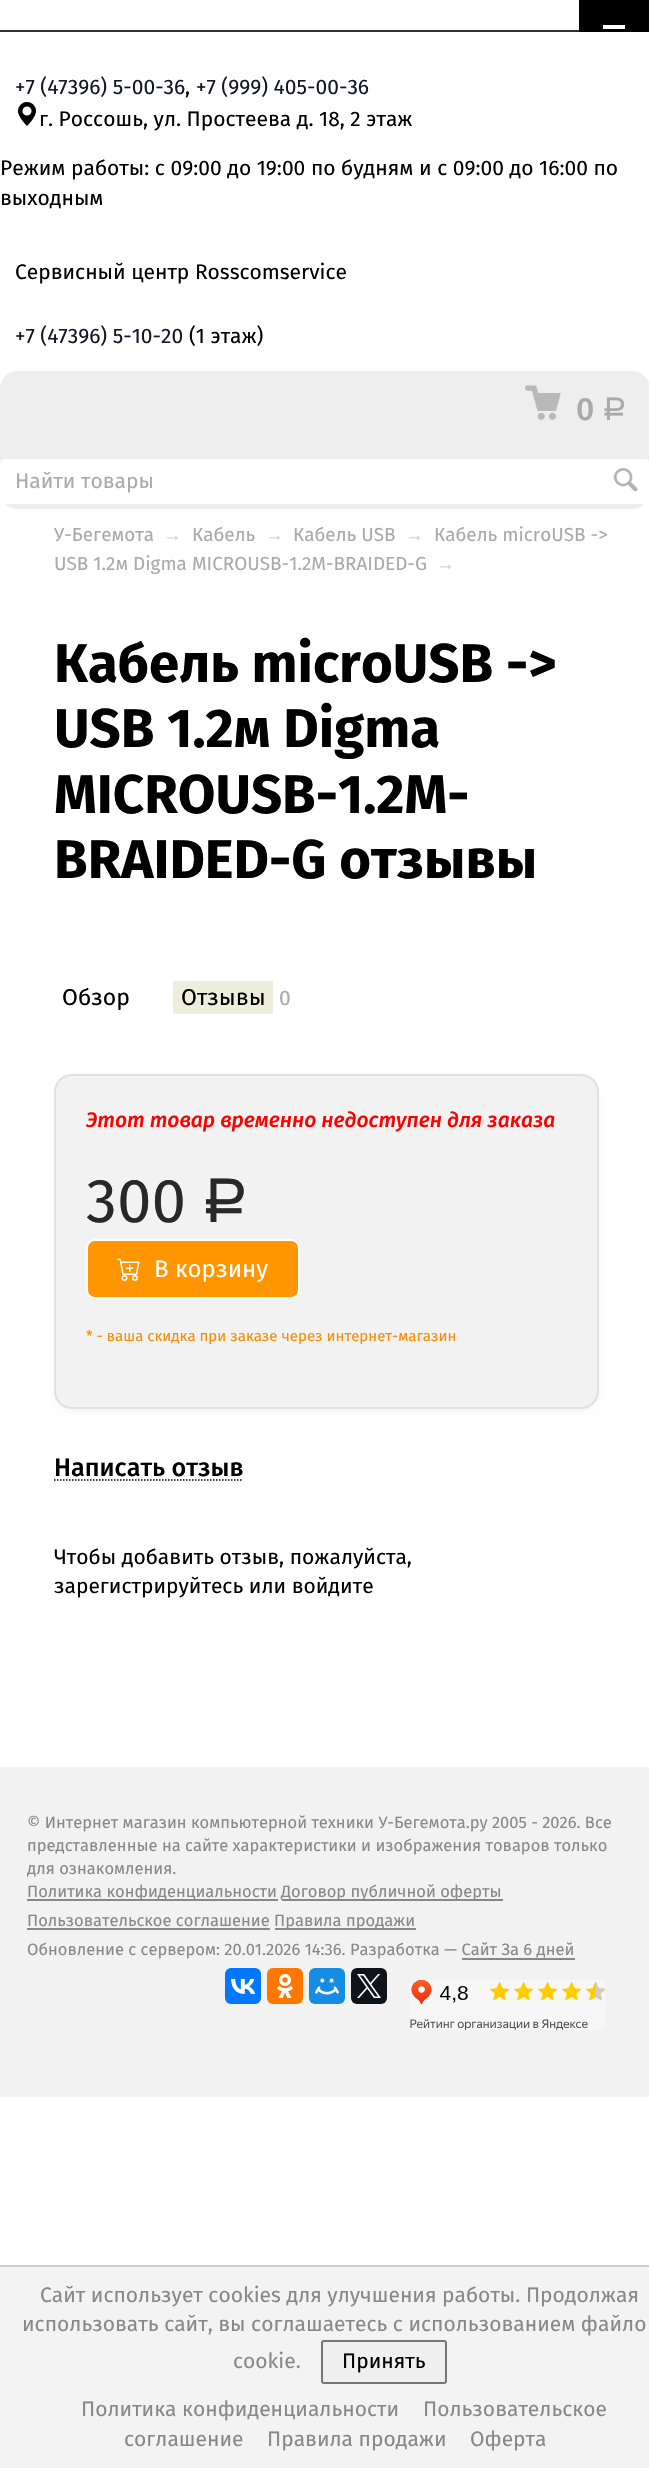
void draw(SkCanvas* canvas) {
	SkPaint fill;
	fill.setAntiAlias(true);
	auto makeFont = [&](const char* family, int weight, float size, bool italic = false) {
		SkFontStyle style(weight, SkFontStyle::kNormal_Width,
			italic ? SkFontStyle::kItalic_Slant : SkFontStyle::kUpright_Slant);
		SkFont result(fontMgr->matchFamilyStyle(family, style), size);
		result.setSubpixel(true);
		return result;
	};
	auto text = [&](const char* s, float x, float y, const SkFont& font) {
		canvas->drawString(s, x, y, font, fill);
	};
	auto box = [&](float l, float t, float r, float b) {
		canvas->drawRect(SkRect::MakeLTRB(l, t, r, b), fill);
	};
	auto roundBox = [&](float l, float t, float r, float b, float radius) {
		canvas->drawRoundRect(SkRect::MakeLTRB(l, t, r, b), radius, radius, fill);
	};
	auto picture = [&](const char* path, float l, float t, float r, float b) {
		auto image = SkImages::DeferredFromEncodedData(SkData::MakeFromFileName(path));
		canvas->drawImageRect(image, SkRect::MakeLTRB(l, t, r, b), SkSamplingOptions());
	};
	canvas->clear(0xFFFFFFFF);
	fill.setColor(0xFF303030);
	box(0, 30, 579, 32);
	fill.setColor(0xFF000000);
	box(579, 0, 649, 32);
	fill.setColor(0xFFFFFFFF);
	box(603, 25, 625, 29);
	picture("image0.png", 18, 102, 36, 126);
	fill.setColor(0xFFEEEEEE);
	roundBox(0, 371, 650, 509, 18);
	picture("image1.png", 525, 385, 561, 420);
	fill.setColor(0xFFFFFFFF);
	roundBox(0, 459, 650, 504, 5);
	picture("image2.png", 613, 468, 638, 492);
	fill.setColor(0xFFEEEEDD);
	box(173, 981, 273, 1014);
	fill.setColor(0x1A000000);
	fill.setMaskFilter(SkMaskFilter::MakeBlur(kNormal_SkBlurStyle, 6));
	canvas->drawRoundRect(SkRect::MakeLTRB(60, 1085, 593, 1407), 12, 12, fill);
	fill.setMaskFilter(nullptr);
	fill.setColor(0xFFF2F2F2);
	roundBox(54, 1074, 599, 1409, 18);
	fill.setStyle(SkPaint::kStroke_Style);
	fill.setStrokeWidth(2);
	fill.setColor(0x12000000);
	canvas->drawRoundRect(SkRect::MakeLTRB(55, 1075, 598, 1408), 17, 17, fill);
	fill.setStyle(SkPaint::kFill_Style);
	fill.setColor(0xFFFF9501);
	canvas->drawRoundRect(SkRect::MakeLTRB(87, 1240, 299, 1298), 8, 8, fill);
	fill.setStyle(SkPaint::kStroke_Style);
	fill.setColor(0xFFFFFFFF);
	canvas->drawRoundRect(SkRect::MakeLTRB(87, 1240, 299, 1298), 8, 8, fill);
	picture("image3.png", 117, 1258, 140, 1281);
	fill.setStrokeWidth(1.5f);
	fill.setColor(0xFF000000);
	fill.setPathEffect(SkDashPathEffect::Make({{1.5f, 1.5f}}, 0));
	canvas->drawPath(SkPathBuilder().moveTo(54, 1480).lineTo(243, 1480).detach(), fill);
	fill.setPathEffect(nullptr);
	fill.setStyle(SkPaint::kFill_Style);
	fill.setColor(0xFFF2F2F2);
	box(0, 1767, 649, 2097);
	fill.setColor(0xFF888888);
	box(27, 1899, 278, 1901);
	box(282, 1899, 503, 1901);
	box(27, 1928, 270, 1930);
	box(275, 1928, 416, 1930);
	box(462, 1958, 575, 1960);
	fill.setColor(0xFF0077FF);
	roundBox(225, 1968, 261, 2004, 6);
	picture("image4.png", 231, 1978, 255, 1994);
	fill.setColor(0xFFFF7700);
	roundBox(267, 1968, 303, 2004, 6);
	picture("image5.png", 277, 1974, 294, 1998);
	fill.setColor(0xFF168DE2);
	roundBox(309, 1968, 345, 2004, 6);
	picture("image6.png", 315, 1978, 339, 1995);
	fill.setColor(0xFF0F1419);
	roundBox(351, 1968, 387, 2004, 6);
	picture("image7.png", 357, 1974, 381, 1998);
	picture("image8.png", 410, 1980, 605, 2030);
	fill.setColor(0xFFF3F3F3);
	box(0, 2267, 649, 2468);
	fill.setColor(0xFFCCCCCC);
	box(0, 2265, 649, 2267);
	fill.setColor(0xFFEFEFEF);
	canvas->drawRoundRect(SkRect::MakeLTRB(322, 2341, 446, 2383), 2, 2, fill);
	fill.setStyle(SkPaint::kStroke_Style);
	fill.setStrokeWidth(2);
	fill.setColor(0xFF767676);
	canvas->drawRoundRect(SkRect::MakeLTRB(322, 2341, 446, 2383), 2, 2, fill);
	auto font1 = makeFont("Fira Sans", 400, 21);
	fill.setStyle(SkPaint::kFill_Style);
	fill.setColor(0xFF151528);
	text("+7 (47396) 5-00-36", 15, 94, font1);
	fill.setColor(0xFF000000);
	text(",", 185, 94, font1);
	fill.setColor(0xFF151528);
	text("+7 (999) 405-00-36", 196, 94, font1);
	fill.setColor(0xFF000000);
	text("г. Россошь, ул. Простеева д. 18, 2 этаж", 39, 126, font1);
	text("Режим работы: с 09:00 до 19:00 по будням и с 09:00 до 16:00 по", 0, 175, font1);
	text("выходным", 0, 205, font1);
	text("Сервисный центр Rosscomservice", 15, 279, font1);
	fill.setColor(0xFF151528);
	text("+7 (47396) 5-10-20", 15, 343, font1);
	fill.setColor(0xFF000000);
	text("(1 этаж)", 189, 343, font1);
	auto font2 = makeFont("Fira Sans", 500, 32);
	fill.setColor(0xFFAAAAAA);
	text("0", 576, 420, font2);
	auto font3 = makeFont("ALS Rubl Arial", 400, 32);
	text("Р", 602, 420, font3);
	text("Найти товары", 15, 488, font1);
	auto font4 = makeFont("Fira Sans", 400, 18.9f);
	text("У-Бегемота", 54, 541, font4);
	auto font5 = makeFont("Liberation Sans", 400, 18.9f);
	fill.setColor(0xFFCCCCCC);
	text("→", 163, 541, font5);
	fill.setColor(0xFFAAAAAA);
	text("Кабель", 192, 541, font4);
	fill.setColor(0xFFCCCCCC);
	text("→", 265, 541, font5);
	fill.setColor(0xFFAAAAAA);
	text("Кабель USB", 293, 541, font4);
	fill.setColor(0xFFCCCCCC);
	text("→", 405, 541, font5);
	fill.setColor(0xFFAAAAAA);
	text("Кабель microUSB ->", 434, 541, font4);
	text("USB 1.2м Digma MICROUSB-1.2M-BRAIDED-G", 54, 570, font4);
	fill.setColor(0xFFCCCCCC);
	text("→", 436, 570, font5);
	auto font6 = makeFont("Fira Sans", 700, 54.5f);
	fill.setColor(0xFF000000);
	text("Кабель microUSB ->", 54, 682, font6);
	text("USB 1.2м Digma", 54, 747, font6);
	text("MICROUSB-1.2M-", 54, 813, font6);
	text("BRAIDED-G отзывы", 54, 878, font6);
	auto font7 = makeFont("Fira Sans", 400, 23);
	text("Обзор", 62, 1005, font7);
	text("Отзывы", 181, 1005, font7);
	fill.setColor(0xFFAAAAAA);
	text("0", 279, 1005, font1);
	auto font8 = makeFont("Fira Sans", 500, 21, true);
	fill.setColor(0xFFFF0000);
	text("Этот товар временно недоступен для заказа", 86, 1127, font8);
	auto font9 = makeFont("Fira Sans", 400, 62);
	fill.setColor(0xFF282828);
	text("300", 86, 1222, font9);
	auto font10 = makeFont("ALS Rubl Arial", 400, 62);
	text("Р", 201, 1222, font10);
	auto font11 = makeFont("Fira Sans", 400, 24);
	fill.setColor(0xFFFFFFFF);
	text("В корзину", 154, 1277, font11);
	auto font12 = makeFont("Fira Sans", 400, 15);
	fill.setColor(0xFFFB8C00);
	text("* - ваша скидка при заказе через интернет-магазин", 86, 1341, font12);
	auto font13 = makeFont("Fira Sans", 500, 25.25f);
	fill.setColor(0xFF000000);
	text("Написать отзыв", 54, 1476, font13);
	text("Чтобы добавить отзыв, пожалуйста,", 54, 1564, font1);
	text("зарегистрируйтесь или войдите", 54, 1593, font1);
	auto font14 = makeFont("Fira Sans", 400, 16.5f);
	fill.setColor(0xFF888888);
	text("© Интернет магазин компьютерной техники У-Бегемота.ру 2005 - 2026. Все", 27, 1828, font14);
	text("представленные на сайте характеристики и изображения товаров только", 27, 1851, font14);
	text("для ознакомления.", 27, 1874, font14);
	text("Политика конфиденциальности", 27, 1897, font14);
	text("Договор публичной оферты", 281, 1897, font14);
	text("Пользовательское соглашение", 27, 1926, font14);
	text("Правила продажи", 274, 1926, font14);
	text("Обновление с сервером: 20.01.2026 14:36. Разработка — Сайт За 6 дней", 27, 1955, font14);
	text("Сайт использует cookies для улучшения работы. Продолжая", 40, 2302, font1);
	text("использовать сайт, вы соглашаетесь с использованием файло", 22, 2331, font1);
	text("cookie.", 233, 2368, font1);
	fill.setColor(0xFF000000);
	text("Принять", 342, 2368, font1);
	fill.setColor(0xFF888888);
	text("Политика конфиденциальности", 81, 2416, font1);
	text("Пользовательское", 423, 2416, font1);
	text("соглашение", 124, 2446, font1);
	text("Правила продажи", 267, 2446, font1);
	text("Оферта", 470, 2446, font1);
}
